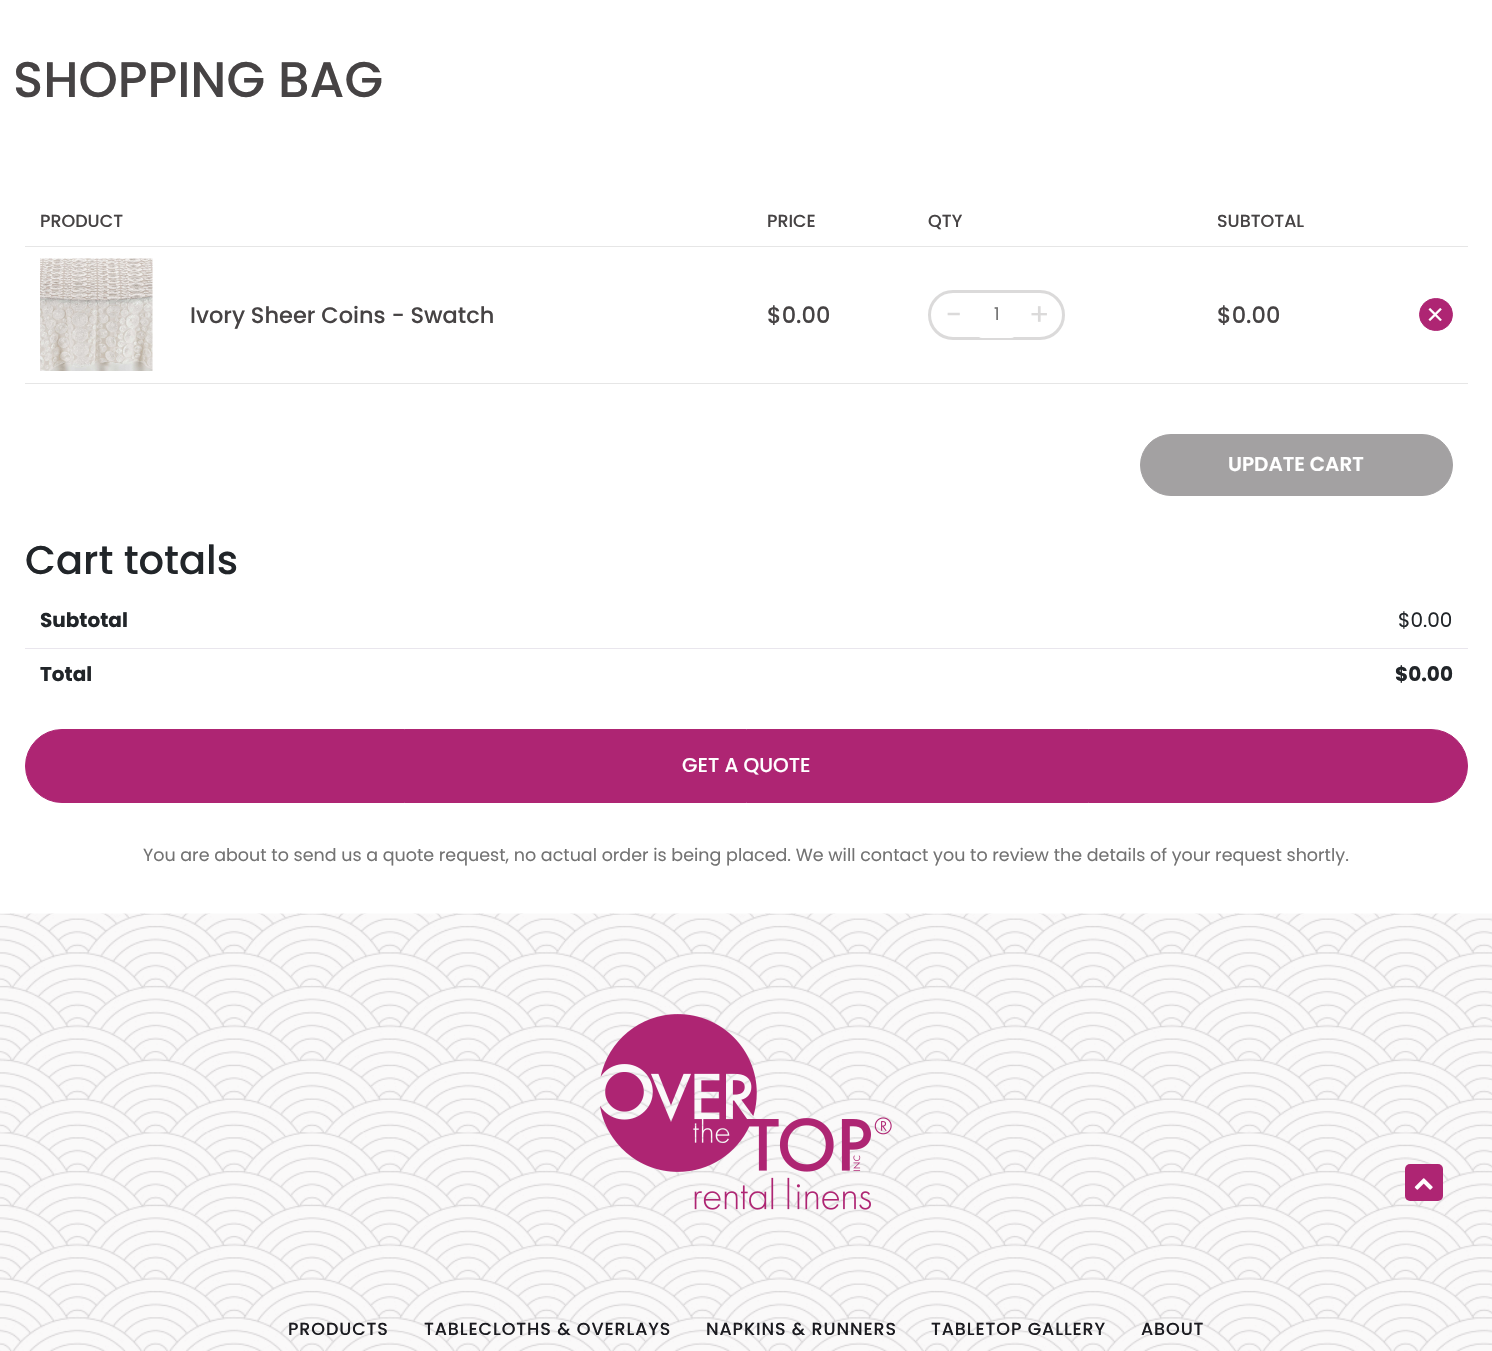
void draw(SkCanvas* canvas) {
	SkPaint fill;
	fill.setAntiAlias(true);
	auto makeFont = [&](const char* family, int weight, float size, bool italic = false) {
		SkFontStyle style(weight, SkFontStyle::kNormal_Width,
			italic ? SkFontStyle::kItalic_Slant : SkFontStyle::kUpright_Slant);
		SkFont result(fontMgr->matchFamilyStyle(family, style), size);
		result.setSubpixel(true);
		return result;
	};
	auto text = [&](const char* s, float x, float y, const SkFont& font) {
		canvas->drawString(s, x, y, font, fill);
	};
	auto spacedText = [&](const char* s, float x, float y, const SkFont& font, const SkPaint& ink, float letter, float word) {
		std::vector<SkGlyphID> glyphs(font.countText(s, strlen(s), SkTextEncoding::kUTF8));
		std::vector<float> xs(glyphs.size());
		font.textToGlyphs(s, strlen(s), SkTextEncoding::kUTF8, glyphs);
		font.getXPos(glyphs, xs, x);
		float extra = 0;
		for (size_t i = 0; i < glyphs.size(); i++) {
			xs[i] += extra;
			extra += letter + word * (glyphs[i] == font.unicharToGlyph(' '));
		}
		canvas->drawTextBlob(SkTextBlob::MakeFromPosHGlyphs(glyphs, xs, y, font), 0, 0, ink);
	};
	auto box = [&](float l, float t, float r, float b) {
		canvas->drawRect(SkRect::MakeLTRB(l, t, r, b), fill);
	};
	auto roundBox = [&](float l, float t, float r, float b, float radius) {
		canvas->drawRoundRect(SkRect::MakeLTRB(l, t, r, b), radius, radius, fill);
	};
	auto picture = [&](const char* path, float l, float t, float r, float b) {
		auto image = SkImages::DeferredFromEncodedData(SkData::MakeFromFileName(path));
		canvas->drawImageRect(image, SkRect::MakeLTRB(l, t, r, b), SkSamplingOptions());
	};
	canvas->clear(0xFFFFFFFF);
	fill.setColor(0xFFE6E6E6);
	box(25, 246, 1468, 247);
	picture("image0.png", 40, 258, 153, 371);
	fill.setStyle(SkPaint::kStroke_Style);
	fill.setStrokeWidth(3);
	fill.setColor(0xFFDBDADA);
	canvas->drawRoundRect(SkRect::MakeLTRB(929.5f, 291.5f, 1063.5f, 338.5f), 23.5f, 23.5f, fill);
	fill.setStyle(SkPaint::kFill_Style);
	fill.setColor(0xFFFFFFFF);
	roundBox(978, 293, 1015, 338, 4);
	fill.setColor(0xFFAE2573);
	canvas->drawRoundRect(SkRect::MakeLTRB(1419.5f, 298.5f, 1452.5f, 330.5f), 16, 16, fill);
	fill.setStyle(SkPaint::kStroke_Style);
	fill.setStrokeWidth(1);
	canvas->drawRoundRect(SkRect::MakeLTRB(1419.5f, 298.5f, 1452.5f, 330.5f), 16, 16, fill);
	fill.setStyle(SkPaint::kFill_Style);
	fill.setColor(0xFFE6E6E6);
	box(25, 383, 1468, 384);
	fill.setColor(0xFFA3A1A2);
	canvas->drawRoundRect(SkRect::MakeLTRB(1140.5f, 434.5f, 1452.5f, 495.5f), 30.5f, 30.5f, fill);
	fill.setStyle(SkPaint::kStroke_Style);
	canvas->drawRoundRect(SkRect::MakeLTRB(1140.5f, 434.5f, 1452.5f, 495.5f), 30.5f, 30.5f, fill);
	fill.setStyle(SkPaint::kFill_Style);
	fill.setColor(0xFFE9E6ED);
	box(25, 648, 1468, 649);
	fill.setColor(0xFFAE2573);
	canvas->drawRoundRect(SkRect::MakeLTRB(25.5f, 729.5f, 1467.5f, 802.5f), 36.5f, 36.5f, fill);
	fill.setStyle(SkPaint::kStroke_Style);
	canvas->drawRoundRect(SkRect::MakeLTRB(25.5f, 729.5f, 1467.5f, 802.5f), 36.5f, 36.5f, fill);
	picture("image2.png", 0, 913, 1492, 1351);
	fill.setStyle(SkPaint::kFill_Style);
	roundBox(1405, 1164, 1443, 1201, 5);
	picture("image1.png", 1414, 1178, 1433, 1190);
	picture("image3.png", 600, 1014, 892, 1210);
	auto font1 = makeFont("Poppins", 500, 50);
	fill.setColor(0xFF464344);
	text("SHOPPING BAG", 13, 97, font1);
	auto font2 = makeFont("Poppins", 500, 17.5f);
	text("PRODUCT", 40, 227, font2);
	text("PRICE", 767, 227, font2);
	text("QTY", 928, 227, font2);
	text("SUBTOTAL", 1217, 227, font2);
	auto font3 = makeFont("Poppins", 500, 22.5f);
	text("Ivory Sheer Coins - Swatch", 190, 323, font3);
	text("$0.00", 767, 323, font3);
	auto font4 = makeFont("Poppins", 400, 30);
	fill.setColor(0xFFDBDADA);
	text("-", 946, 325, font4);
	auto font5 = makeFont("Poppins", 400, 17.5f);
	fill.setColor(0xFF737373);
	text("1", 994, 320, font5);
	fill.setColor(0xFFDBDADA);
	text("+", 1029, 325, font4);
	fill.setColor(0xFF464344);
	text("$0.00", 1217, 323, font3);
	auto font6 = makeFont("Poppins", 300, 31);
	fill.setColor(0xFFFFFFFF);
	text("×", 1426, 326, font6);
	auto font7 = makeFont("Poppins", 600, 20);
	text("UPDATE CART", 1228, 471, font7);
	auto font8 = makeFont("Poppins", 500, 40);
	fill.setColor(0xFF212529);
	text("Cart totals", 25, 574, font8);
	auto font9 = makeFont("Poppins", 700, 20);
	text("Subtotal", 40, 627, font9);
	auto font10 = makeFont("Poppins", 400, 20);
	text("$0.00", 1398, 627, font10);
	text("Total", 40, 681, font9);
	text("$0.00", 1395, 681, font9);
	auto font11 = makeFont("Poppins", 500, 20);
	fill.setColor(0xFFFFFFFF);
	text("GET A QUOTE", 682, 772, font11);
	fill.setColor(0xFF737373);
	text("You are about to send us a quote request, no actual order is being placed. We will contact you to review the details of your request shortly.", 143, 861, font5);
	fill.setColor(0xFF1B1B20);
	spacedText("PRODUCTS", 288, 1335, font2, fill, 0.9f, 0);
	spacedText("TABLECLOTHS & OVERLAYS", 424, 1335, font2, fill, 0.9f, 0);
	spacedText("NAPKINS & RUNNERS", 706, 1335, font2, fill, 0.9f, 0);
	spacedText("TABLETOP GALLERY", 931, 1335, font2, fill, 0.9f, 0);
	spacedText("ABOUT", 1141, 1335, font2, fill, 0.9f, 0);
}
